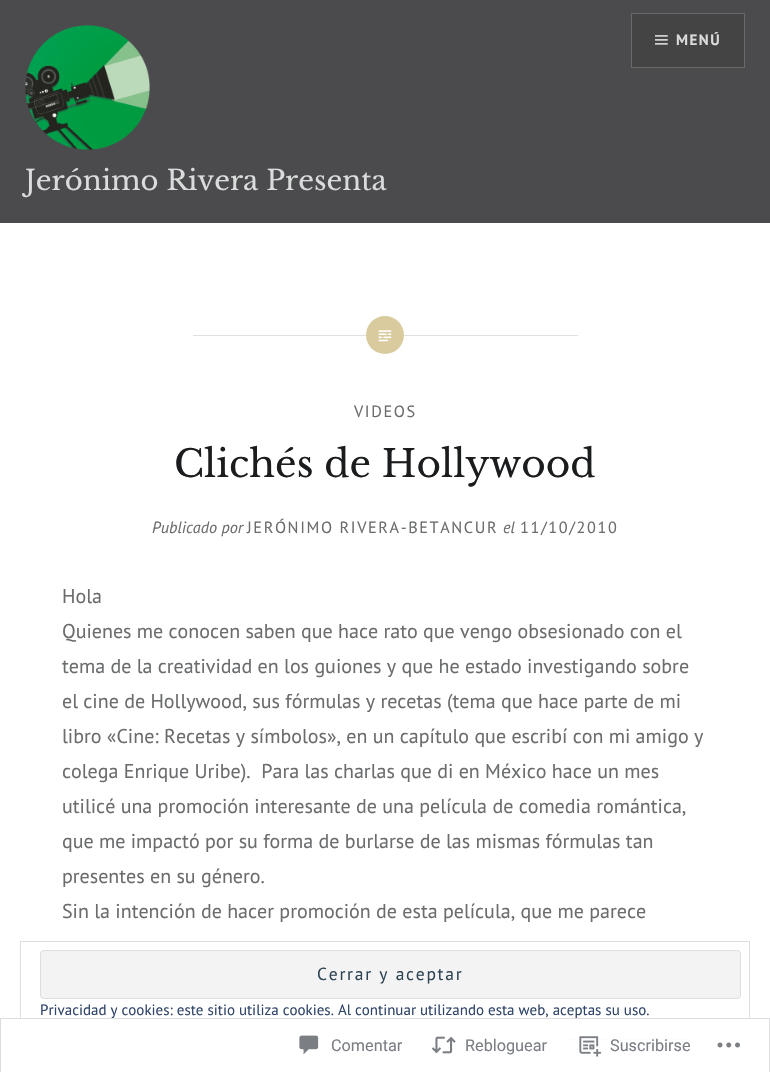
void draw(SkCanvas* canvas) {
	SkPaint fill;
	fill.setAntiAlias(true);
	auto makeFont = [&](const char* family, int weight, float size, bool italic = false) {
		SkFontStyle style(weight, SkFontStyle::kNormal_Width,
			italic ? SkFontStyle::kItalic_Slant : SkFontStyle::kUpright_Slant);
		SkFont result(fontMgr->matchFamilyStyle(family, style), size);
		result.setSubpixel(true);
		return result;
	};
	auto text = [&](const char* s, float x, float y, const SkFont& font) {
		canvas->drawString(s, x, y, font, fill);
	};
	auto spacedText = [&](const char* s, float x, float y, const SkFont& font, const SkPaint& ink, float letter, float word) {
		std::vector<SkGlyphID> glyphs(font.countText(s, strlen(s), SkTextEncoding::kUTF8));
		std::vector<float> xs(glyphs.size());
		font.textToGlyphs(s, strlen(s), SkTextEncoding::kUTF8, glyphs);
		font.getXPos(glyphs, xs, x);
		float extra = 0;
		for (size_t i = 0; i < glyphs.size(); i++) {
			xs[i] += extra;
			extra += letter + word * (glyphs[i] == font.unicharToGlyph(' '));
		}
		canvas->drawTextBlob(SkTextBlob::MakeFromPosHGlyphs(glyphs, xs, y, font), 0, 0, ink);
	};
	auto box = [&](float l, float t, float r, float b) {
		canvas->drawRect(SkRect::MakeLTRB(l, t, r, b), fill);
	};
	auto picture = [&](const char* path, float l, float t, float r, float b) {
		auto image = SkImages::DeferredFromEncodedData(SkData::MakeFromFileName(path));
		canvas->drawImageRect(image, SkRect::MakeLTRB(l, t, r, b), SkSamplingOptions());
	};
	canvas->clear(0xFFFFFFFF);
	fill.setColor(0xFF4B4B4D);
	box(0, 0, 770, 223);
	fill.setColor(0xFF444445);
	canvas->drawRect(SkRect::MakeLTRB(631.5f, 13.5f, 744.5f, 67.5f), fill);
	fill.setStyle(SkPaint::kStroke_Style);
	fill.setStrokeWidth(1);
	fill.setColor(0xFF69696A);
	canvas->drawRect(SkRect::MakeLTRB(631.5f, 13.5f, 744.5f, 67.5f), fill);
	picture("image0.png", 655, 35, 668, 45);
	picture("image1.png", 25, 25, 150, 150);
	fill.setStyle(SkPaint::kFill_Style);
	fill.setColor(0xFFE0E0E0);
	box(193, 335, 578, 336);
	fill.setColor(0xFFD9CB9E);
	canvas->drawCircle(385, 335, 19, fill);
	picture("image2.png", 378, 330, 392, 342);
	fill.setStyle(SkPaint::kStroke_Style);
	fill.setColor(0xFFDEDEDE);
	canvas->drawRect(SkRect::MakeLTRB(20.5f, 941.5f, 749.5f, 1052.5f), fill);
	fill.setStyle(SkPaint::kFill_Style);
	fill.setColor(0xFFF3F3F3);
	canvas->drawRoundRect(SkRect::MakeLTRB(40.5f, 950.5f, 740.5f, 998.5f), 3.5f, 3.5f, fill);
	fill.setStyle(SkPaint::kStroke_Style);
	fill.setColor(0xFFDEDEDE);
	canvas->drawRoundRect(SkRect::MakeLTRB(40.5f, 950.5f, 740.5f, 998.5f), 3.5f, 3.5f, fill);
	fill.setStyle(SkPaint::kFill_Style);
	fill.setColor(0xFF2E4467);
	box(568, 1039, 688, 1040);
	fill.setColor(0xFAFFFFFF);
	box(20, 1019, 750, 1053);
	auto font1 = makeFont("PT Sans", 700, 15);
	fill.setColor(0xFFDADCDC);
	spacedText("MENÚ", 676, 45, font1, fill, 1.5f, 0);
	auto font2 = makeFont("Libre Baskerville", 400, 27.5f);
	text("Jerónimo Rivera Presenta", 25, 190, font2);
	auto font3 = makeFont("PT Sans", 400, 16.25f);
	fill.setColor(0xFF6A6C6E);
	spacedText("VIDEOS", 354, 417, font3, fill, 1.6f, 0);
	auto font4 = makeFont("Libre Baskerville", 400, 37.5f);
	fill.setColor(0xFF1A1C1E);
	text("Clichés de Hollywood", 174, 477, font4);
	auto font5 = makeFont("PT Sans", 400, 16.25f, true);
	fill.setColor(0xFF6A6C6E);
	text("Publicado por", 152, 533, font5);
	spacedText("JERÓNIMO RIVERA-BETANCUR", 247, 533, font3, fill, 1.6f, 0);
	text("el", 503, 533, font5);
	spacedText("11/10/2010", 520, 533, font3, fill, 1.6f, 0);
	auto font6 = makeFont("PT Sans", 400, 20);
	text("Hola", 62, 603, font6);
	text("Quienes me conocen saben que hace rato que vengo obsesionado con el", 62, 638, font6);
	text("tema de la creatividad en los guiones y que he estado investigando sobre", 62, 673, font6);
	text("el cine de Hollywood, sus fórmulas y recetas (tema que hace parte de mi", 62, 708, font6);
	text("libro «Cine: Recetas y símbolos», en un capítulo que escribí con mi amigo y", 62, 743, font6);
	text("colega Enrique Uribe).  Para las charlas que di en México hace un mes", 62, 778, font6);
	text("utilicé una promoción interesante de una película de comedia romántica,", 62, 813, font6);
	text("que me impactó por su forma de burlarse de las mismas fórmulas tan", 62, 848, font6);
	text("presentes en su género.", 62, 883, font6);
	text("Sin la intención de hacer promoción de esta película, que me parece", 62, 918, font6);
	auto font7 = makeFont("PT Sans", 400, 17.5f);
	fill.setColor(0xFF2E4453);
	spacedText("Cerrar y aceptar", 317, 980, font7, fill, 1.75f, 0);
	auto font8 = makeFont("PT Sans", 400, 15);
	fill.setColor(0xFF2E4467);
	text("Privacidad y cookies: este sitio utiliza cookies. Al continuar utilizando esta web, aceptas su uso.", 40, 1015, font8);
	fill.setStyle(SkPaint::kStroke_Style);
	fill.setColor(0xFFDDDDDF);
	canvas->drawRect(SkRect::MakeLTRB(0.5f, 1018.5f, 769.5f, 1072.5f), fill);
	picture("image3.png", 299, 1035, 319, 1055);
	auto font9 = makeFont("Roboto", 400, 16.25f);
	fill.setStyle(SkPaint::kFill_Style);
	fill.setColor(0xFF7B7F85);
	text("Comentar", 331, 1051, font9);
	picture("image4.png", 431, 1036, 456, 1054);
	text("Rebloguear", 465, 1051, font9);
	picture("image5.png", 579, 1036, 601, 1057);
	text("Suscribirse", 610, 1051, font9);
	picture("image6.png", 717, 1042, 740, 1048);
}
